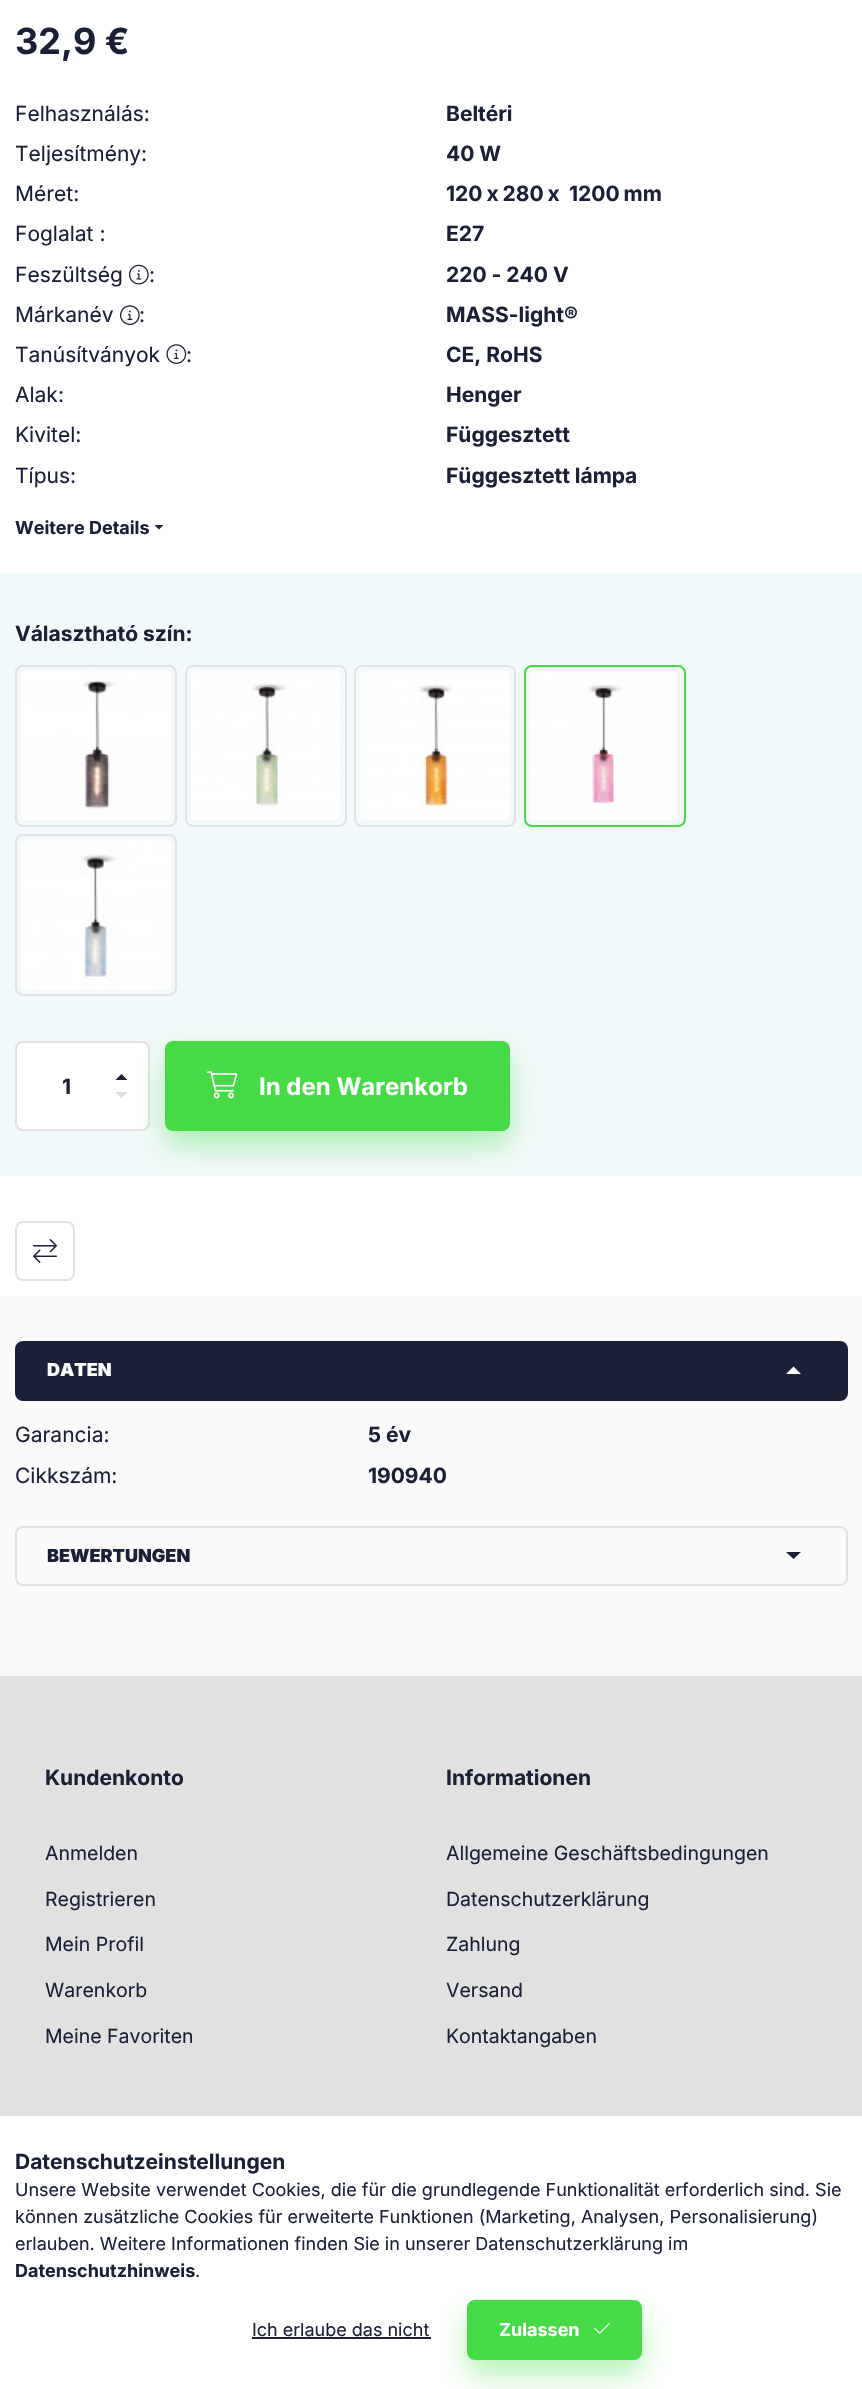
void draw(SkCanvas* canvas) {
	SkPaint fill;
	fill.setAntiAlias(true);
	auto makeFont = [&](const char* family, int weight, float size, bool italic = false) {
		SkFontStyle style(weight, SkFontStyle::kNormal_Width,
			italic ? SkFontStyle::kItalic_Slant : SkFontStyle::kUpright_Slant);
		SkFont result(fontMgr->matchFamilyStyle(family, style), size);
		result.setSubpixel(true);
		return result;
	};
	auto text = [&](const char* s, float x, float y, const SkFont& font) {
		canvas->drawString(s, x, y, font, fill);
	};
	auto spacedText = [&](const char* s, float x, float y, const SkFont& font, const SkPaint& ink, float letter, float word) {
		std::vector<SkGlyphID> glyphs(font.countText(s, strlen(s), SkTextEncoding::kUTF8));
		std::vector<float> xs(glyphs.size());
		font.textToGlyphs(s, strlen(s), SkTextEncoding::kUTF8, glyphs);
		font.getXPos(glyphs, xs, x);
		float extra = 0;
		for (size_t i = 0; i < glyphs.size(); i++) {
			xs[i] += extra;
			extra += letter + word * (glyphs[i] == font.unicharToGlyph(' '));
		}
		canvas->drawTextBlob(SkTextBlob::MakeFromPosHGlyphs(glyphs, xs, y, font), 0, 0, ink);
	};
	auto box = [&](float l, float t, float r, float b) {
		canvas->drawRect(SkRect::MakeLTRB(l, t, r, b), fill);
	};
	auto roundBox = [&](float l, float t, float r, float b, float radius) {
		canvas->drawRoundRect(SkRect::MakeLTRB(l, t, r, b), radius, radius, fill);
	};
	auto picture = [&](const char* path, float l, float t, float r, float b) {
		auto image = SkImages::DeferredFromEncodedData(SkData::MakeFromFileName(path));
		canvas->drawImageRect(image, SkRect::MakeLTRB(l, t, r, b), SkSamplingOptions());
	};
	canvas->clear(0xFFFAFAFA);
	fill.setColor(0xFFFFFFFF);
	box(0, 0, 862, 1296);
	picture("image0.png", 129, 264, 149, 285);
	picture("image1.png", 120, 305, 140, 325);
	picture("image2.png", 166, 344, 187, 364);
	fill.setColor(0xFF1B2036);
	canvas->drawPath(SkPathBuilder().moveTo(154.5f, 525).lineTo(163.5f, 525).lineTo(159, 529.5f).close().detach(), fill);
	fill.setColor(0xFFF2F9FA);
	box(0, 573, 862, 1176);
	fill.setStyle(SkPaint::kStroke_Style);
	fill.setStrokeWidth(2);
	fill.setColor(0xFFE1E1E1);
	canvas->drawRoundRect(SkRect::MakeLTRB(16, 666, 176, 826), 7, 7, fill);
	picture("image3.png", 21, 671, 171, 820);
	canvas->drawRoundRect(SkRect::MakeLTRB(186, 666, 346, 826), 7, 7, fill);
	picture("image4.png", 191, 671, 340, 820);
	canvas->drawRoundRect(SkRect::MakeLTRB(355, 666, 515, 826), 7, 7, fill);
	picture("image5.png", 360, 671, 510, 820);
	fill.setColor(0xFF46DB46);
	canvas->drawRoundRect(SkRect::MakeLTRB(525, 666, 685, 826), 7, 7, fill);
	picture("image6.png", 530, 671, 679, 820);
	fill.setColor(0xFFE1E1E1);
	canvas->drawRoundRect(SkRect::MakeLTRB(16, 835, 176, 995), 7, 7, fill);
	picture("image7.png", 21, 840, 171, 990);
	fill.setStyle(SkPaint::kFill_Style);
	fill.setColor(0xFFFFFFFF);
	canvas->drawRoundRect(SkRect::MakeLTRB(16, 1042, 149, 1130), 7, 7, fill);
	fill.setStyle(SkPaint::kStroke_Style);
	fill.setColor(0xFFE1E1E1);
	canvas->drawRoundRect(SkRect::MakeLTRB(16, 1042, 149, 1130), 7, 7, fill);
	fill.setStyle(SkPaint::kFill_Style);
	fill.setColor(0xFF1B2036);
	canvas->drawPath(SkPathBuilder().moveTo(127.5f, 1080).lineTo(115.5f, 1080).lineTo(121.5f, 1074).close().detach(), fill);
	fill.setColor(0xFFDDDDDD);
	canvas->drawPath(SkPathBuilder().moveTo(115.5f, 1092).lineTo(127.5f, 1092).lineTo(121.5f, 1098).close().detach(), fill);
	fill.setColor(0x6646DB46);
	fill.setMaskFilter(SkMaskFilter::MakeBlur(kNormal_SkBlurStyle, 15));
	canvas->drawRoundRect(SkRect::MakeLTRB(165, 1056, 510, 1146), 8, 8, fill);
	fill.setMaskFilter(nullptr);
	fill.setColor(0xFF46DB46);
	roundBox(165, 1041, 510, 1131, 8);
	picture("image8.png", 207, 1071, 238, 1099);
	fill.setStyle(SkPaint::kStroke_Style);
	fill.setColor(0xFFE1E1E1);
	canvas->drawRoundRect(SkRect::MakeLTRB(16, 1222, 74, 1280), 7, 7, fill);
	picture("image9.png", 33, 1239, 57, 1263);
	fill.setStyle(SkPaint::kFill_Style);
	fill.setColor(0xFF1B2036);
	canvas->drawRoundRect(SkRect::MakeLTRB(16, 1342, 847, 1400), 7, 7, fill);
	fill.setStyle(SkPaint::kStroke_Style);
	canvas->drawRoundRect(SkRect::MakeLTRB(16, 1342, 847, 1400), 7, 7, fill);
	fill.setStyle(SkPaint::kFill_Style);
	fill.setColor(0xFFFFFFFF);
	canvas->drawPath(SkPathBuilder().moveTo(786, 1374).lineTo(801, 1374).lineTo(793.5f, 1366.5f).close().detach(), fill);
	fill.setStyle(SkPaint::kStroke_Style);
	fill.setColor(0xFFE1E1E1);
	canvas->drawRoundRect(SkRect::MakeLTRB(16, 1527, 847, 1585), 7, 7, fill);
	fill.setStyle(SkPaint::kFill_Style);
	fill.setColor(0xFF1B2036);
	canvas->drawPath(SkPathBuilder().moveTo(786, 1552).lineTo(801, 1552).lineTo(793.5f, 1559).close().detach(), fill);
	fill.setColor(0xFFE1E1E1);
	box(0, 1676, 862, 2116);
	fill.setColor(0xFFFFFFFF);
	box(0, 2116, 862, 2389);
	fill.setColor(0xFF1B2036);
	box(252, 2337, 431, 2339);
	fill.setColor(0x6646DB46);
	fill.setMaskFilter(SkMaskFilter::MakeBlur(kNormal_SkBlurStyle, 15));
	canvas->drawRoundRect(SkRect::MakeLTRB(467, 2315, 642, 2375), 8, 8, fill);
	fill.setMaskFilter(nullptr);
	fill.setColor(0xFF46DB46);
	canvas->drawRoundRect(SkRect::MakeLTRB(468, 2301, 641, 2359), 7, 7, fill);
	fill.setStyle(SkPaint::kStroke_Style);
	canvas->drawRoundRect(SkRect::MakeLTRB(468, 2301, 641, 2359), 7, 7, fill);
	picture("image10.png", 594, 2323, 610, 2334);
	auto font1 = makeFont("Inter", 700, 36);
	fill.setStyle(SkPaint::kFill_Style);
	fill.setColor(0xFF1B2036);
	text("32,9 €", 15, 54, font1);
	auto font2 = makeFont("Inter", 400, 21);
	text("Felhasználás:", 15, 121, font2);
	auto font3 = makeFont("Inter", 700, 21);
	text("Beltéri", 446, 121, font3);
	text("Teljesítmény:", 15, 161, font2);
	text("40 W", 446, 161, font3);
	text("Méret:", 15, 201, font2);
	spacedText("120 x 280 x", 446, 201, font3, fill, 0, -1);
	spacedText("1200 mm", 569, 201, font3, fill, 0, -1);
	text("Foglalat :", 15, 241, font2);
	text("E27", 446, 241, font3);
	text("Feszültség", 15, 282, font2);
	text(":", 149, 282, font2);
	text("220 - 240 V", 446, 282, font3);
	text("Márkanév", 15, 322, font2);
	text(":", 139, 322, font2);
	text("MASS-light®", 446, 322, font3);
	text("Tanúsítványok", 15, 362, font2);
	text(":", 186, 362, font2);
	text("CE, RoHS", 446, 362, font3);
	text("Alak:", 15, 402, font2);
	text("Henger", 446, 402, font3);
	text("Kivitel:", 15, 442, font2);
	text("Függesztett", 446, 442, font3);
	text("Típus:", 15, 483, font2);
	text("Függesztett lámpa", 446, 483, font3);
	auto font4 = makeFont("Inter", 700, 18);
	text("Weitere Details", 15, 534, font4);
	text("Választható szín:", 15, 641, font3);
	text("1", 62, 1094, font3);
	auto font5 = makeFont("Inter", 700, 24);
	fill.setColor(0xFFFFFFFF);
	text("In den Warenkorb", 259, 1095, font5);
	auto font6 = makeFont("Inter", 900, 18);
	text("DATEN", 47, 1376, font6);
	fill.setColor(0xFF1B2036);
	text("Garancia:", 15, 1442, font2);
	text("5 év", 368, 1442, font3);
	text("Cikkszám:", 15, 1483, font2);
	text("190940", 368, 1483, font3);
	text("BEWERTUNGEN", 47, 1562, font6);
	text("Kundenkonto", 45, 1785, font3);
	auto font7 = makeFont("Inter", 400, 19.5f);
	text("Anmelden", 45, 1860, font7);
	text("Registrieren", 45, 1906, font7);
	text("Mein Profil", 45, 1951, font7);
	text("Warenkorb", 45, 1997, font7);
	text("Meine Favoriten", 45, 2043, font7);
	text("Informationen", 446, 1785, font3);
	text("Allgemeine Geschäftsbedingungen", 446, 1860, font7);
	text("Datenschutzerklärung", 446, 1906, font7);
	text("Zahlung", 446, 1951, font7);
	text("Versand", 446, 1997, font7);
	text("Kontaktangaben", 446, 2043, font7);
	text("Datenschutzeinstellungen", 15, 2169, font3);
	auto font8 = makeFont("Inter", 400, 18);
	text("Unsere Website verwendet Cookies, die für die grundlegende Funktionalität erforderlich sind. Sie", 15, 2196, font8);
	text("können zusätzliche Cookies für erweiterte Funktionen (Marketing, Analysen, Personalisierung)", 15, 2223, font8);
	text("erlauben. Weitere Informationen finden Sie in unserer Datenschutzerklärung im", 15, 2250, font8);
	text("Datenschutzhinweis", 15, 2277, font4);
	text(".", 195, 2277, font8);
	text("Ich erlaube das nicht", 252, 2336, font8);
	fill.setColor(0xFFFFFFFF);
	text("Zulassen", 499, 2336, font4);
}
